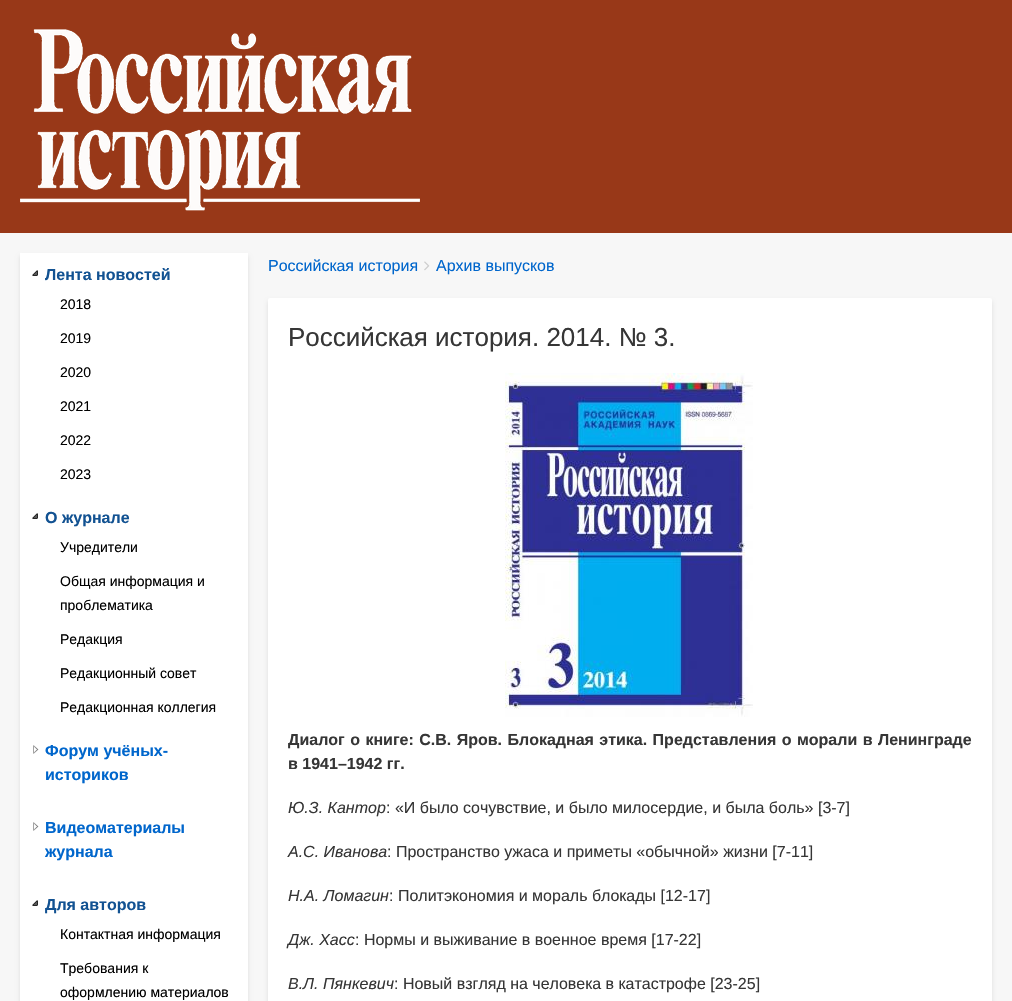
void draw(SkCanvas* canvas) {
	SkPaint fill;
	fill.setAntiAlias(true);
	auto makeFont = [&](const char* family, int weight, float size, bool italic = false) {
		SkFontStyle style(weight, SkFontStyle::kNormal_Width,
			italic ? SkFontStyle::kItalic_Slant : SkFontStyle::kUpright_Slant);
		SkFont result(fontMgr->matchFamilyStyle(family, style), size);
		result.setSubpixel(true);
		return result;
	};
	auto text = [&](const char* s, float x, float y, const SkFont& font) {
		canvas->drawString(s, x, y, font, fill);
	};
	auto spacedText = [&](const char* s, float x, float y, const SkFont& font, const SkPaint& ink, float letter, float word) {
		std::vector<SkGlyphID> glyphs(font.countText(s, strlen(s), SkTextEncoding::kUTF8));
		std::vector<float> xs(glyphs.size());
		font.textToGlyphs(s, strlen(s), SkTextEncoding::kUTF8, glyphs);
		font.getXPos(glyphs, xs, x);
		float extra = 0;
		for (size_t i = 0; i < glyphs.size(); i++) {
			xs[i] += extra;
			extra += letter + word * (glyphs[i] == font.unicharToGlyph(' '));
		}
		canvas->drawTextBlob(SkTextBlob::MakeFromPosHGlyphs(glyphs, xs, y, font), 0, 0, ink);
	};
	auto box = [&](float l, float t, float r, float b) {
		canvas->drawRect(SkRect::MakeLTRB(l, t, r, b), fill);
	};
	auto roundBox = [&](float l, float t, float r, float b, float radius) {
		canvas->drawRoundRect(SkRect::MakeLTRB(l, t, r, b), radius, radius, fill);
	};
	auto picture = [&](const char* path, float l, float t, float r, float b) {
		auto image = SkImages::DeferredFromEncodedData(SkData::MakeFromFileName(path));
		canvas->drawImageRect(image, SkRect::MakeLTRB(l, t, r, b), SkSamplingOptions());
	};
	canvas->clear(0xFFF7F7F7);
	fill.setColor(0xFF983818);
	box(0, 0, 1012, 233);
	picture("image0.png", 20, 29, 420, 211);
	fill.setColor(0x1A000000);
	fill.setMaskFilter(SkMaskFilter::MakeBlur(kNormal_SkBlurStyle, 2));
	canvas->drawRect(SkRect::MakeLTRB(20, 256, 248, 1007), fill);
	fill.setMaskFilter(nullptr);
	fill.setColor(0xFFFFFFFF);
	box(20, 253, 248, 1001);
	picture("image1.png", 32, 270, 38, 276);
	picture("image1.png", 32, 513, 38, 519);
	picture("image2.png", 33, 745, 39, 754);
	picture("image2.png", 33, 822, 39, 831);
	picture("image1.png", 32, 900, 38, 906);
	picture("image3.png", 424, 261, 430, 271);
	fill.setColor(0x1A000000);
	fill.setMaskFilter(SkMaskFilter::MakeBlur(kNormal_SkBlurStyle, 2));
	canvas->drawRoundRect(SkRect::MakeLTRB(268, 301, 992, 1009), 2, 2, fill);
	fill.setMaskFilter(nullptr);
	fill.setColor(0xFFFFFFFF);
	roundBox(268, 298, 992, 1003, 2);
	picture("image4.png", 505, 373, 753, 717);
	auto font1 = makeFont("Liberation Sans", 700, 16);
	fill.setColor(0xFF125292);
	text("Лента новостей", 45, 280, font1);
	auto font2 = makeFont("Liberation Sans", 400, 14);
	fill.setColor(0xFF000000);
	text("2018", 60, 309, font2);
	text("2019", 60, 343, font2);
	text("2020", 60, 377, font2);
	text("2021", 60, 411, font2);
	text("2022", 60, 445, font2);
	text("2023", 60, 479, font2);
	fill.setColor(0xFF125292);
	text("О журнале", 45, 523, font1);
	fill.setColor(0xFF000000);
	text("Учредители", 60, 552, font2);
	text("Общая информация и", 60, 586, font2);
	text("проблематика", 60, 610, font2);
	text("Редакция", 60, 644, font2);
	text("Редакционный совет", 60, 678, font2);
	text("Редакционная коллегия", 60, 712, font2);
	fill.setColor(0xFF0066CC);
	text("Форум учёных-", 45, 756, font1);
	text("историков", 45, 780, font1);
	text("Видеоматериалы", 45, 833, font1);
	text("журнала", 45, 857, font1);
	fill.setColor(0xFF125292);
	text("Для авторов", 45, 910, font1);
	fill.setColor(0xFF000000);
	text("Контактная информация", 60, 939, font2);
	text("Требования к", 60, 973, font2);
	text("оформлению материалов", 60, 997, font2);
	auto font3 = makeFont("Liberation Sans", 400, 16);
	fill.setColor(0xFF0066CC);
	text("Российская история", 268, 271, font3);
	text("Архив выпусков", 436, 271, font3);
	auto font4 = makeFont("Liberation Sans", 400, 26);
	fill.setColor(0xFF363636);
	text("Российская история. 2014. № 3.", 288, 346, font4);
	spacedText("Диалог о книге: С.В. Яров. Блокадная этика. Представления о морали в Ленинграде", 288, 745, font1, fill, 0, 1);
	text("в 1941–1942 гг.", 288, 769, font1);
	auto font5 = makeFont("Liberation Sans", 400, 16, true);
	text("Ю.З. Кантор", 288, 813, font5);
	text(": «И было сочувствие, и было милосердие, и была боль» [3-7]", 386, 813, font3);
	text("А.С. Иванова", 288, 857, font5);
	text(": Пространство ужаса и приметы «обычной» жизни [7-11]", 387, 857, font3);
	text("Н.А. Ломагин", 288, 901, font5);
	text(": Политэкономия и мораль блокады [12-17]", 389, 901, font3);
	text("Дж. Хасс", 288, 945, font5);
	text(": Нормы и выживание в военное время [17-22]", 355, 945, font3);
	text("В.Л. Пянкевич", 288, 989, font5);
	text(": Новый взгляд на человека в катастрофе [23-25]", 394, 989, font3);
}
